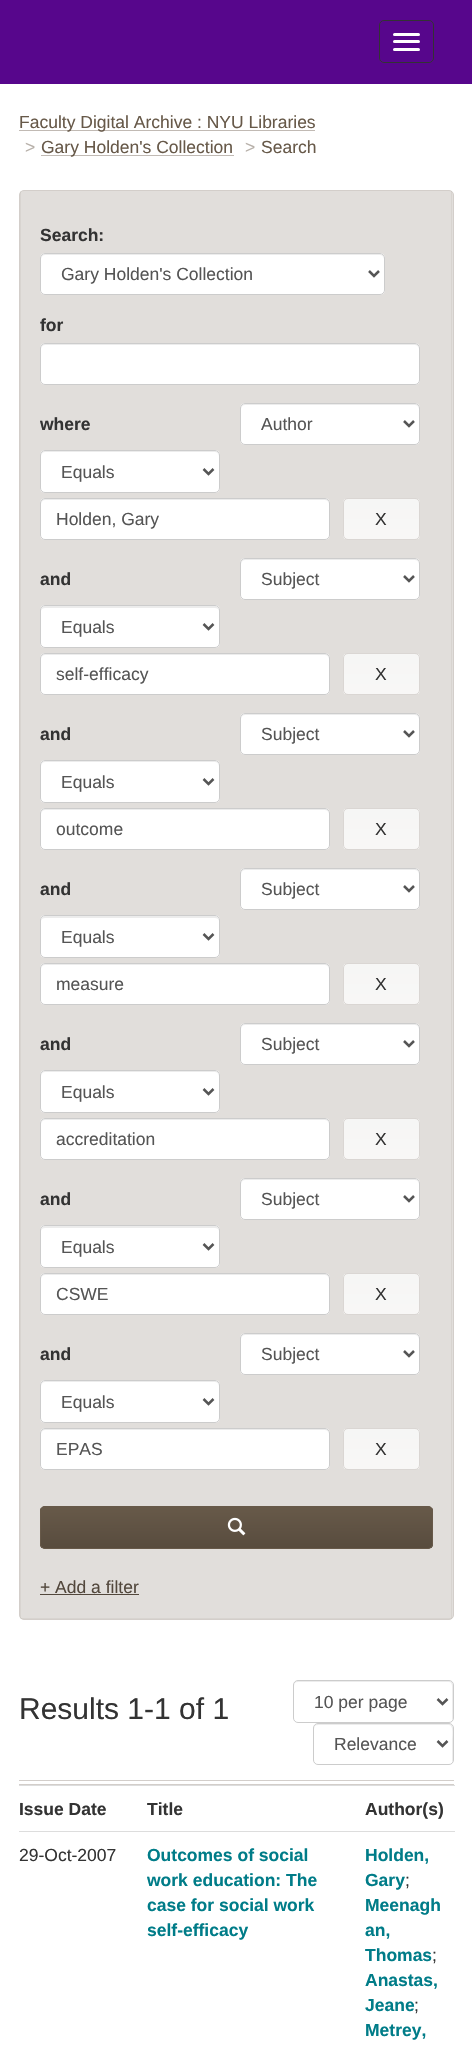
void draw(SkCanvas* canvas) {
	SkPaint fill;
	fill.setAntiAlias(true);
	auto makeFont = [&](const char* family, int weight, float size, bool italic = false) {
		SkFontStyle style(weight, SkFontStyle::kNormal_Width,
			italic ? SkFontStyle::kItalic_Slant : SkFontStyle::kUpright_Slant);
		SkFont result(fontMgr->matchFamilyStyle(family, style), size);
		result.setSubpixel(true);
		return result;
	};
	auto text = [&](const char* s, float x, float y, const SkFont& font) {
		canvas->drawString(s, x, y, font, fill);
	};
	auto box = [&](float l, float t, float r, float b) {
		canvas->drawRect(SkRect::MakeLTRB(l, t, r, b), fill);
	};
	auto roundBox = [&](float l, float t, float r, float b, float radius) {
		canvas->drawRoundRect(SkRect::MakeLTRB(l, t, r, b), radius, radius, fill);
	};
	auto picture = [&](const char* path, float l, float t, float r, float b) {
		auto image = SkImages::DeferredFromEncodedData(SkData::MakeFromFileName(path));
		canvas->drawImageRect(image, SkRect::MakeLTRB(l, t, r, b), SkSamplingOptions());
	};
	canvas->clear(0xFFFFFFFF);
	fill.setColor(0xFF57068C);
	box(0, 0, 472, 84);
	fill.setStyle(SkPaint::kStroke_Style);
	fill.setStrokeWidth(1);
	fill.setColor(0xFF333333);
	canvas->drawRoundRect(SkRect::MakeLTRB(379.5f, 20.5f, 433.5f, 62.5f), 4.5f, 4.5f, fill);
	fill.setStyle(SkPaint::kFill_Style);
	fill.setColor(0xFFFFFFFF);
	roundBox(393, 33, 420, 36, 1.5f);
	roundBox(393, 40, 420, 43, 1.5f);
	roundBox(393, 48, 420, 51, 1.5f);
	fill.setColor(0xFFC1BAB4);
	box(19, 130, 315, 131);
	box(41, 155, 234, 156);
	fill.setColor(0xFFE1DEDB);
	canvas->drawRoundRect(SkRect::MakeLTRB(19.5f, 190.5f, 453.5f, 1619.5f), 4.5f, 4.5f, fill);
	fill.setStyle(SkPaint::kStroke_Style);
	fill.setColor(0xFFD3CECA);
	canvas->drawRoundRect(SkRect::MakeLTRB(19.5f, 190.5f, 453.5f, 1619.5f), 4.5f, 4.5f, fill);
	fill.setStyle(SkPaint::kFill_Style);
	fill.setColor(0x33B5ADA6);
	canvas->drawPath(SkPathBuilder().moveTo(452, 191).lineTo(452, 1619).lineTo(451, 1618).lineTo(451, 191).close().detach(), fill);
	canvas->drawPath(SkPathBuilder().moveTo(452, 1619).lineTo(20, 1619).lineTo(21, 1618).lineTo(451, 1618).close().detach(), fill);
	canvas->drawPath(SkPathBuilder().moveTo(20, 1619).lineTo(20, 191).lineTo(21, 191).lineTo(21, 1618).close().detach(), fill);
	fill.setColor(0xFFFFFFFF);
	roundBox(40, 253, 385, 295, 5);
	fill.setColor(0xFFECECEC);
	canvas->drawPath(SkPathBuilder().moveTo(45, 255).lineTo(380, 255).cubicTo(382, 255, 384, 257, 384, 259).lineTo(384, 258).cubicTo(384, 256, 382, 254, 380, 254).lineTo(45, 254).cubicTo(43, 254, 41, 256, 41, 258).lineTo(41, 259).cubicTo(41, 257, 43, 255, 45, 255).close().detach(), fill);
	fill.setStyle(SkPaint::kStroke_Style);
	fill.setColor(0xFFCCCCCC);
	canvas->drawRoundRect(SkRect::MakeLTRB(40.5f, 253.5f, 384.5f, 294.5f), 4.5f, 4.5f, fill);
	fill.setStrokeWidth(2.5f);
	fill.setColor(0xFF555555);
	canvas->drawPath(SkPathBuilder().moveTo(369, 271).lineTo(374, 276).lineTo(379, 271).detach(), fill);
	fill.setStyle(SkPaint::kFill_Style);
	fill.setColor(0xFFFFFFFF);
	roundBox(40, 343, 420, 385, 5);
	fill.setColor(0xFFECECEC);
	canvas->drawPath(SkPathBuilder().moveTo(45, 345).lineTo(415, 345).cubicTo(417, 345, 419, 347, 419, 349).cubicTo(419, 346, 418, 344, 415, 344).lineTo(45, 344).cubicTo(42, 344, 41, 346, 41, 349).cubicTo(41, 347, 43, 345, 45, 345).close().detach(), fill);
	fill.setStyle(SkPaint::kStroke_Style);
	fill.setStrokeWidth(1);
	fill.setColor(0xFFCCCCCC);
	canvas->drawRoundRect(SkRect::MakeLTRB(40.5f, 343.5f, 419.5f, 384.5f), 4.5f, 4.5f, fill);
	fill.setStyle(SkPaint::kFill_Style);
	fill.setColor(0xFFFFFFFF);
	roundBox(240, 403, 420, 445, 5);
	fill.setColor(0xFFECECEC);
	canvas->drawPath(SkPathBuilder().moveTo(245, 405).lineTo(415, 405).cubicTo(417, 405, 419, 407, 419, 409).lineTo(419, 408).cubicTo(419, 406, 417, 404, 415, 404).lineTo(245, 404).cubicTo(243, 404, 241, 406, 241, 408).lineTo(241, 409).cubicTo(241, 407, 243, 405, 245, 405).close().detach(), fill);
	fill.setStyle(SkPaint::kStroke_Style);
	fill.setColor(0xFFCCCCCC);
	canvas->drawRoundRect(SkRect::MakeLTRB(240.5f, 403.5f, 419.5f, 444.5f), 4.5f, 4.5f, fill);
	fill.setStrokeWidth(2.5f);
	fill.setColor(0xFF555555);
	canvas->drawPath(SkPathBuilder().moveTo(404, 421).lineTo(409, 426).lineTo(414, 421).detach(), fill);
	fill.setStyle(SkPaint::kFill_Style);
	fill.setColor(0xFFFFFFFF);
	roundBox(40, 450, 220, 493, 5);
	fill.setColor(0xFFECECEC);
	canvas->drawPath(SkPathBuilder().moveTo(45, 452).lineTo(215, 452).cubicTo(217, 452, 219, 454, 219, 456).lineTo(219, 455).cubicTo(219, 453, 217, 451, 215, 451).lineTo(45, 451).cubicTo(43, 451, 41, 453, 41, 455).lineTo(41, 456).cubicTo(41, 454, 43, 452, 45, 452).close().detach(), fill);
	fill.setStyle(SkPaint::kStroke_Style);
	fill.setStrokeWidth(1);
	fill.setColor(0xFFCCCCCC);
	canvas->drawRoundRect(SkRect::MakeLTRB(40.5f, 450.5f, 219.5f, 492.5f), 4.5f, 4.5f, fill);
	fill.setStrokeWidth(2.5f);
	fill.setColor(0xFF555555);
	canvas->drawPath(SkPathBuilder().moveTo(203.5f, 469).lineTo(208.5f, 474).lineTo(213.5f, 469).detach(), fill);
	fill.setStyle(SkPaint::kFill_Style);
	fill.setColor(0xFFFFFFFF);
	roundBox(40, 498, 330, 540, 5);
	fill.setColor(0xFFECECEC);
	canvas->drawPath(SkPathBuilder().moveTo(45, 500).lineTo(325, 500).cubicTo(327, 500, 329, 502, 329, 504).cubicTo(329, 501, 328, 499, 325, 499).lineTo(45, 499).cubicTo(42, 499, 41, 501, 41, 504).cubicTo(41, 502, 43, 500, 45, 500).close().detach(), fill);
	fill.setStyle(SkPaint::kStroke_Style);
	fill.setStrokeWidth(1);
	fill.setColor(0xFFCCCCCC);
	canvas->drawRoundRect(SkRect::MakeLTRB(40.5f, 498.5f, 329.5f, 539.5f), 4.5f, 4.5f, fill);
	canvas->save();
	canvas->clipPath(SkPathBuilder().moveTo(348, 498).lineTo(415, 498).cubicTo(418, 498, 420, 500, 420, 503).lineTo(420, 535).cubicTo(420, 538, 418, 540, 415, 540).lineTo(348, 540).cubicTo(345, 540, 343, 538, 343, 535).lineTo(343, 503).cubicTo(343, 500, 345, 498, 348, 498).close().detach(), true);
	fill.setStyle(SkPaint::kFill_Style);
	{
		const SkColor colors[] = {0xFFF6F6F5, 0xFFF8F7F6};
		const float stops[] = {0, 1};
		const SkPoint ends[] = {{381, 499}, {381, 539}};
		fill.setShader(SkGradientShader::MakeLinear(ends, colors, stops, 2, SkTileMode::kClamp));
		fill.setAlpha(255);
	}
	box(343, 499, 420, 539);
	canvas->restore();
	fill.setStyle(SkPaint::kStroke_Style);
	fill.setShader(nullptr);
	fill.setColor(0xFFDAD6D3);
	canvas->drawRoundRect(SkRect::MakeLTRB(343.5f, 498.5f, 419.5f, 539.5f), 4.5f, 4.5f, fill);
	fill.setStyle(SkPaint::kFill_Style);
	fill.setColor(0xFFFFFFFF);
	roundBox(240, 558, 420, 600, 5);
	fill.setColor(0xFFECECEC);
	canvas->drawPath(SkPathBuilder().moveTo(245, 560).lineTo(415, 560).cubicTo(417, 560, 419, 562, 419, 564).lineTo(419, 563).cubicTo(419, 561, 417, 559, 415, 559).lineTo(245, 559).cubicTo(243, 559, 241, 561, 241, 563).lineTo(241, 564).cubicTo(241, 562, 243, 560, 245, 560).close().detach(), fill);
	fill.setStyle(SkPaint::kStroke_Style);
	fill.setColor(0xFFCCCCCC);
	canvas->drawRoundRect(SkRect::MakeLTRB(240.5f, 558.5f, 419.5f, 599.5f), 4.5f, 4.5f, fill);
	fill.setStrokeWidth(2.5f);
	fill.setColor(0xFF555555);
	canvas->drawPath(SkPathBuilder().moveTo(404, 576).lineTo(409, 581).lineTo(414, 576).detach(), fill);
	fill.setStyle(SkPaint::kFill_Style);
	fill.setColor(0xFFFFFFFF);
	roundBox(40, 605, 220, 648, 5);
	fill.setColor(0xFFECECEC);
	canvas->drawPath(SkPathBuilder().moveTo(45, 608).lineTo(215, 608).cubicTo(217, 608, 219, 609, 219, 611).lineTo(219, 610).cubicTo(219, 608, 217, 606, 215, 606).lineTo(45, 606).cubicTo(43, 606, 41, 608, 41, 610).lineTo(41, 611).cubicTo(41, 609, 43, 608, 45, 608).close().detach(), fill);
	fill.setStyle(SkPaint::kStroke_Style);
	fill.setStrokeWidth(1);
	fill.setColor(0xFFCCCCCC);
	canvas->drawRoundRect(SkRect::MakeLTRB(40.5f, 605.5f, 219.5f, 647.5f), 4.5f, 4.5f, fill);
	fill.setStrokeWidth(2.5f);
	fill.setColor(0xFF555555);
	canvas->drawPath(SkPathBuilder().moveTo(203.5f, 624).lineTo(208.5f, 629).lineTo(213.5f, 624).detach(), fill);
	fill.setStyle(SkPaint::kFill_Style);
	fill.setColor(0xFFFFFFFF);
	roundBox(40, 653, 330, 695, 5);
	fill.setColor(0xFFECECEC);
	canvas->drawPath(SkPathBuilder().moveTo(45, 655).lineTo(325, 655).cubicTo(327, 655, 329, 657, 329, 659).cubicTo(329, 656, 328, 654, 325, 654).lineTo(45, 654).cubicTo(42, 654, 41, 656, 41, 659).cubicTo(41, 657, 43, 655, 45, 655).close().detach(), fill);
	fill.setStyle(SkPaint::kStroke_Style);
	fill.setStrokeWidth(1);
	fill.setColor(0xFFCCCCCC);
	canvas->drawRoundRect(SkRect::MakeLTRB(40.5f, 653.5f, 329.5f, 694.5f), 4.5f, 4.5f, fill);
	canvas->save();
	canvas->clipPath(SkPathBuilder().moveTo(348, 653).lineTo(415, 653).cubicTo(418, 653, 420, 655, 420, 658).lineTo(420, 690).cubicTo(420, 693, 418, 695, 415, 695).lineTo(348, 695).cubicTo(345, 695, 343, 693, 343, 690).lineTo(343, 658).cubicTo(343, 655, 345, 653, 348, 653).close().detach(), true);
	fill.setStyle(SkPaint::kFill_Style);
	{
		const SkColor colors[] = {0xFFF6F6F5, 0xFFF8F7F6};
		const float stops[] = {0, 1};
		const SkPoint ends[] = {{381, 654}, {381, 694}};
		fill.setShader(SkGradientShader::MakeLinear(ends, colors, stops, 2, SkTileMode::kClamp));
		fill.setAlpha(255);
	}
	box(343, 654, 420, 694);
	canvas->restore();
	fill.setStyle(SkPaint::kStroke_Style);
	fill.setShader(nullptr);
	fill.setColor(0xFFDAD6D3);
	canvas->drawRoundRect(SkRect::MakeLTRB(343.5f, 653.5f, 419.5f, 694.5f), 4.5f, 4.5f, fill);
	fill.setStyle(SkPaint::kFill_Style);
	fill.setColor(0xFFFFFFFF);
	roundBox(240, 713, 420, 755, 5);
	fill.setColor(0xFFECECEC);
	canvas->drawPath(SkPathBuilder().moveTo(245, 715).lineTo(415, 715).cubicTo(417, 715, 419, 717, 419, 719).lineTo(419, 718).cubicTo(419, 716, 417, 714, 415, 714).lineTo(245, 714).cubicTo(243, 714, 241, 716, 241, 718).lineTo(241, 719).cubicTo(241, 717, 243, 715, 245, 715).close().detach(), fill);
	fill.setStyle(SkPaint::kStroke_Style);
	fill.setColor(0xFFCCCCCC);
	canvas->drawRoundRect(SkRect::MakeLTRB(240.5f, 713.5f, 419.5f, 754.5f), 4.5f, 4.5f, fill);
	fill.setStrokeWidth(2.5f);
	fill.setColor(0xFF555555);
	canvas->drawPath(SkPathBuilder().moveTo(404, 731).lineTo(409, 736).lineTo(414, 731).detach(), fill);
	fill.setStyle(SkPaint::kFill_Style);
	fill.setColor(0xFFFFFFFF);
	roundBox(40, 760, 220, 803, 5);
	fill.setColor(0xFFECECEC);
	canvas->drawPath(SkPathBuilder().moveTo(45, 762).lineTo(215, 762).cubicTo(217, 762, 219, 764, 219, 766).lineTo(219, 765).cubicTo(219, 763, 217, 761, 215, 761).lineTo(45, 761).cubicTo(43, 761, 41, 763, 41, 765).lineTo(41, 766).cubicTo(41, 764, 43, 762, 45, 762).close().detach(), fill);
	fill.setStyle(SkPaint::kStroke_Style);
	fill.setStrokeWidth(1);
	fill.setColor(0xFFCCCCCC);
	canvas->drawRoundRect(SkRect::MakeLTRB(40.5f, 760.5f, 219.5f, 802.5f), 4.5f, 4.5f, fill);
	fill.setStrokeWidth(2.5f);
	fill.setColor(0xFF555555);
	canvas->drawPath(SkPathBuilder().moveTo(203.5f, 779).lineTo(208.5f, 784).lineTo(213.5f, 779).detach(), fill);
	fill.setStyle(SkPaint::kFill_Style);
	fill.setColor(0xFFFFFFFF);
	roundBox(40, 808, 330, 850, 5);
	fill.setColor(0xFFECECEC);
	canvas->drawPath(SkPathBuilder().moveTo(45, 810).lineTo(325, 810).cubicTo(327, 810, 329, 812, 329, 814).cubicTo(329, 811, 328, 809, 325, 809).lineTo(45, 809).cubicTo(42, 809, 41, 811, 41, 814).cubicTo(41, 812, 43, 810, 45, 810).close().detach(), fill);
	fill.setStyle(SkPaint::kStroke_Style);
	fill.setStrokeWidth(1);
	fill.setColor(0xFFCCCCCC);
	canvas->drawRoundRect(SkRect::MakeLTRB(40.5f, 808.5f, 329.5f, 849.5f), 4.5f, 4.5f, fill);
	canvas->save();
	canvas->clipPath(SkPathBuilder().moveTo(348, 808).lineTo(415, 808).cubicTo(418, 808, 420, 810, 420, 813).lineTo(420, 845).cubicTo(420, 848, 418, 850, 415, 850).lineTo(348, 850).cubicTo(345, 850, 343, 848, 343, 845).lineTo(343, 813).cubicTo(343, 810, 345, 808, 348, 808).close().detach(), true);
	fill.setStyle(SkPaint::kFill_Style);
	{
		const SkColor colors[] = {0xFFF6F6F5, 0xFFF8F7F6};
		const float stops[] = {0, 1};
		const SkPoint ends[] = {{381, 809}, {381, 849}};
		fill.setShader(SkGradientShader::MakeLinear(ends, colors, stops, 2, SkTileMode::kClamp));
		fill.setAlpha(255);
	}
	box(343, 809, 420, 849);
	canvas->restore();
	fill.setStyle(SkPaint::kStroke_Style);
	fill.setShader(nullptr);
	fill.setColor(0xFFDAD6D3);
	canvas->drawRoundRect(SkRect::MakeLTRB(343.5f, 808.5f, 419.5f, 849.5f), 4.5f, 4.5f, fill);
	fill.setStyle(SkPaint::kFill_Style);
	fill.setColor(0xFFFFFFFF);
	roundBox(240, 868, 420, 910, 5);
	fill.setColor(0xFFECECEC);
	canvas->drawPath(SkPathBuilder().moveTo(245, 870).lineTo(415, 870).cubicTo(417, 870, 419, 872, 419, 874).lineTo(419, 873).cubicTo(419, 871, 417, 869, 415, 869).lineTo(245, 869).cubicTo(243, 869, 241, 871, 241, 873).lineTo(241, 874).cubicTo(241, 872, 243, 870, 245, 870).close().detach(), fill);
	fill.setStyle(SkPaint::kStroke_Style);
	fill.setColor(0xFFCCCCCC);
	canvas->drawRoundRect(SkRect::MakeLTRB(240.5f, 868.5f, 419.5f, 909.5f), 4.5f, 4.5f, fill);
	fill.setStrokeWidth(2.5f);
	fill.setColor(0xFF555555);
	canvas->drawPath(SkPathBuilder().moveTo(404, 886).lineTo(409, 891).lineTo(414, 886).detach(), fill);
	fill.setStyle(SkPaint::kFill_Style);
	fill.setColor(0xFFFFFFFF);
	roundBox(40, 915, 220, 958, 5);
	fill.setColor(0xFFECECEC);
	canvas->drawPath(SkPathBuilder().moveTo(45, 918).lineTo(215, 918).cubicTo(217, 918, 219, 919, 219, 921).lineTo(219, 920).cubicTo(219, 918, 217, 916, 215, 916).lineTo(45, 916).cubicTo(43, 916, 41, 918, 41, 920).lineTo(41, 921).cubicTo(41, 919, 43, 918, 45, 918).close().detach(), fill);
	fill.setStyle(SkPaint::kStroke_Style);
	fill.setStrokeWidth(1);
	fill.setColor(0xFFCCCCCC);
	canvas->drawRoundRect(SkRect::MakeLTRB(40.5f, 915.5f, 219.5f, 957.5f), 4.5f, 4.5f, fill);
	fill.setStrokeWidth(2.5f);
	fill.setColor(0xFF555555);
	canvas->drawPath(SkPathBuilder().moveTo(203.5f, 934).lineTo(208.5f, 939).lineTo(213.5f, 934).detach(), fill);
	fill.setStyle(SkPaint::kFill_Style);
	fill.setColor(0xFFFFFFFF);
	roundBox(40, 963, 330, 1005, 5);
	fill.setColor(0xFFECECEC);
	canvas->drawPath(SkPathBuilder().moveTo(45, 965).lineTo(325, 965).cubicTo(327, 965, 329, 967, 329, 969).cubicTo(329, 966, 328, 964, 325, 964).lineTo(45, 964).cubicTo(42, 964, 41, 966, 41, 969).cubicTo(41, 967, 43, 965, 45, 965).close().detach(), fill);
	fill.setStyle(SkPaint::kStroke_Style);
	fill.setStrokeWidth(1);
	fill.setColor(0xFFCCCCCC);
	canvas->drawRoundRect(SkRect::MakeLTRB(40.5f, 963.5f, 329.5f, 1004.5f), 4.5f, 4.5f, fill);
	canvas->save();
	canvas->clipPath(SkPathBuilder().moveTo(348, 963).lineTo(415, 963).cubicTo(418, 963, 420, 965, 420, 968).lineTo(420, 1000).cubicTo(420, 1003, 418, 1005, 415, 1005).lineTo(348, 1005).cubicTo(345, 1005, 343, 1003, 343, 1000).lineTo(343, 968).cubicTo(343, 965, 345, 963, 348, 963).close().detach(), true);
	fill.setStyle(SkPaint::kFill_Style);
	{
		const SkColor colors[] = {0xFFF6F6F5, 0xFFF8F7F6};
		const float stops[] = {0, 1};
		const SkPoint ends[] = {{381, 964}, {381, 1004}};
		fill.setShader(SkGradientShader::MakeLinear(ends, colors, stops, 2, SkTileMode::kClamp));
		fill.setAlpha(255);
	}
	box(343, 964, 420, 1004);
	canvas->restore();
	fill.setStyle(SkPaint::kStroke_Style);
	fill.setShader(nullptr);
	fill.setColor(0xFFDAD6D3);
	canvas->drawRoundRect(SkRect::MakeLTRB(343.5f, 963.5f, 419.5f, 1004.5f), 4.5f, 4.5f, fill);
	fill.setStyle(SkPaint::kFill_Style);
	fill.setColor(0xFFFFFFFF);
	roundBox(240, 1023, 420, 1065, 5);
	fill.setColor(0xFFECECEC);
	canvas->drawPath(SkPathBuilder().moveTo(245, 1025).lineTo(415, 1025).cubicTo(417, 1025, 419, 1027, 419, 1029).lineTo(419, 1028).cubicTo(419, 1026, 417, 1024, 415, 1024).lineTo(245, 1024).cubicTo(243, 1024, 241, 1026, 241, 1028).lineTo(241, 1029).cubicTo(241, 1027, 243, 1025, 245, 1025).close().detach(), fill);
	fill.setStyle(SkPaint::kStroke_Style);
	fill.setColor(0xFFCCCCCC);
	canvas->drawRoundRect(SkRect::MakeLTRB(240.5f, 1023.5f, 419.5f, 1064.5f), 4.5f, 4.5f, fill);
	fill.setStrokeWidth(2.5f);
	fill.setColor(0xFF555555);
	canvas->drawPath(SkPathBuilder().moveTo(404, 1041).lineTo(409, 1046).lineTo(414, 1041).detach(), fill);
	fill.setStyle(SkPaint::kFill_Style);
	fill.setColor(0xFFFFFFFF);
	roundBox(40, 1070, 220, 1113, 5);
	fill.setColor(0xFFECECEC);
	canvas->drawPath(SkPathBuilder().moveTo(45, 1072).lineTo(215, 1072).cubicTo(217, 1072, 219, 1074, 219, 1076).lineTo(219, 1075).cubicTo(219, 1073, 217, 1071, 215, 1071).lineTo(45, 1071).cubicTo(43, 1071, 41, 1073, 41, 1075).lineTo(41, 1076).cubicTo(41, 1074, 43, 1072, 45, 1072).close().detach(), fill);
	fill.setStyle(SkPaint::kStroke_Style);
	fill.setStrokeWidth(1);
	fill.setColor(0xFFCCCCCC);
	canvas->drawRoundRect(SkRect::MakeLTRB(40.5f, 1070.5f, 219.5f, 1112.5f), 4.5f, 4.5f, fill);
	fill.setStrokeWidth(2.5f);
	fill.setColor(0xFF555555);
	canvas->drawPath(SkPathBuilder().moveTo(203.5f, 1089).lineTo(208.5f, 1094).lineTo(213.5f, 1089).detach(), fill);
	fill.setStyle(SkPaint::kFill_Style);
	fill.setColor(0xFFFFFFFF);
	roundBox(40, 1118, 330, 1160, 5);
	fill.setColor(0xFFECECEC);
	canvas->drawPath(SkPathBuilder().moveTo(45, 1120).lineTo(325, 1120).cubicTo(327, 1120, 329, 1122, 329, 1124).cubicTo(329, 1121, 328, 1119, 325, 1119).lineTo(45, 1119).cubicTo(42, 1119, 41, 1121, 41, 1124).cubicTo(41, 1122, 43, 1120, 45, 1120).close().detach(), fill);
	fill.setStyle(SkPaint::kStroke_Style);
	fill.setStrokeWidth(1);
	fill.setColor(0xFFCCCCCC);
	canvas->drawRoundRect(SkRect::MakeLTRB(40.5f, 1118.5f, 329.5f, 1159.5f), 4.5f, 4.5f, fill);
	canvas->save();
	canvas->clipPath(SkPathBuilder().moveTo(348, 1118).lineTo(415, 1118).cubicTo(418, 1118, 420, 1120, 420, 1123).lineTo(420, 1155).cubicTo(420, 1158, 418, 1160, 415, 1160).lineTo(348, 1160).cubicTo(345, 1160, 343, 1158, 343, 1155).lineTo(343, 1123).cubicTo(343, 1120, 345, 1118, 348, 1118).close().detach(), true);
	fill.setStyle(SkPaint::kFill_Style);
	{
		const SkColor colors[] = {0xFFF6F6F5, 0xFFF8F7F6};
		const float stops[] = {0, 1};
		const SkPoint ends[] = {{381, 1119}, {381, 1159}};
		fill.setShader(SkGradientShader::MakeLinear(ends, colors, stops, 2, SkTileMode::kClamp));
		fill.setAlpha(255);
	}
	box(343, 1119, 420, 1159);
	canvas->restore();
	fill.setStyle(SkPaint::kStroke_Style);
	fill.setShader(nullptr);
	fill.setColor(0xFFDAD6D3);
	canvas->drawRoundRect(SkRect::MakeLTRB(343.5f, 1118.5f, 419.5f, 1159.5f), 4.5f, 4.5f, fill);
	fill.setStyle(SkPaint::kFill_Style);
	fill.setColor(0xFFFFFFFF);
	roundBox(240, 1178, 420, 1220, 5);
	fill.setColor(0xFFECECEC);
	canvas->drawPath(SkPathBuilder().moveTo(245, 1180).lineTo(415, 1180).cubicTo(417, 1180, 419, 1182, 419, 1184).lineTo(419, 1183).cubicTo(419, 1181, 417, 1179, 415, 1179).lineTo(245, 1179).cubicTo(243, 1179, 241, 1181, 241, 1183).lineTo(241, 1184).cubicTo(241, 1182, 243, 1180, 245, 1180).close().detach(), fill);
	fill.setStyle(SkPaint::kStroke_Style);
	fill.setColor(0xFFCCCCCC);
	canvas->drawRoundRect(SkRect::MakeLTRB(240.5f, 1178.5f, 419.5f, 1219.5f), 4.5f, 4.5f, fill);
	fill.setStrokeWidth(2.5f);
	fill.setColor(0xFF555555);
	canvas->drawPath(SkPathBuilder().moveTo(404, 1196).lineTo(409, 1201).lineTo(414, 1196).detach(), fill);
	fill.setStyle(SkPaint::kFill_Style);
	fill.setColor(0xFFFFFFFF);
	roundBox(40, 1225, 220, 1268, 5);
	fill.setColor(0xFFECECEC);
	canvas->drawPath(SkPathBuilder().moveTo(45, 1228).lineTo(215, 1228).cubicTo(217, 1228, 219, 1229, 219, 1231).lineTo(219, 1230).cubicTo(219, 1228, 217, 1226, 215, 1226).lineTo(45, 1226).cubicTo(43, 1226, 41, 1228, 41, 1230).lineTo(41, 1231).cubicTo(41, 1229, 43, 1228, 45, 1228).close().detach(), fill);
	fill.setStyle(SkPaint::kStroke_Style);
	fill.setStrokeWidth(1);
	fill.setColor(0xFFCCCCCC);
	canvas->drawRoundRect(SkRect::MakeLTRB(40.5f, 1225.5f, 219.5f, 1267.5f), 4.5f, 4.5f, fill);
	fill.setStrokeWidth(2.5f);
	fill.setColor(0xFF555555);
	canvas->drawPath(SkPathBuilder().moveTo(203.5f, 1244).lineTo(208.5f, 1249).lineTo(213.5f, 1244).detach(), fill);
	fill.setStyle(SkPaint::kFill_Style);
	fill.setColor(0xFFFFFFFF);
	roundBox(40, 1273, 330, 1315, 5);
	fill.setColor(0xFFECECEC);
	canvas->drawPath(SkPathBuilder().moveTo(45, 1275).lineTo(325, 1275).cubicTo(327, 1275, 329, 1277, 329, 1279).cubicTo(329, 1276, 328, 1274, 325, 1274).lineTo(45, 1274).cubicTo(42, 1274, 41, 1276, 41, 1279).cubicTo(41, 1277, 43, 1275, 45, 1275).close().detach(), fill);
	fill.setStyle(SkPaint::kStroke_Style);
	fill.setStrokeWidth(1);
	fill.setColor(0xFFCCCCCC);
	canvas->drawRoundRect(SkRect::MakeLTRB(40.5f, 1273.5f, 329.5f, 1314.5f), 4.5f, 4.5f, fill);
	canvas->save();
	canvas->clipPath(SkPathBuilder().moveTo(348, 1273).lineTo(415, 1273).cubicTo(418, 1273, 420, 1275, 420, 1278).lineTo(420, 1310).cubicTo(420, 1313, 418, 1315, 415, 1315).lineTo(348, 1315).cubicTo(345, 1315, 343, 1313, 343, 1310).lineTo(343, 1278).cubicTo(343, 1275, 345, 1273, 348, 1273).close().detach(), true);
	fill.setStyle(SkPaint::kFill_Style);
	{
		const SkColor colors[] = {0xFFF6F6F5, 0xFFF8F7F6};
		const float stops[] = {0, 1};
		const SkPoint ends[] = {{381, 1274}, {381, 1314}};
		fill.setShader(SkGradientShader::MakeLinear(ends, colors, stops, 2, SkTileMode::kClamp));
		fill.setAlpha(255);
	}
	box(343, 1274, 420, 1314);
	canvas->restore();
	fill.setStyle(SkPaint::kStroke_Style);
	fill.setShader(nullptr);
	fill.setColor(0xFFDAD6D3);
	canvas->drawRoundRect(SkRect::MakeLTRB(343.5f, 1273.5f, 419.5f, 1314.5f), 4.5f, 4.5f, fill);
	fill.setStyle(SkPaint::kFill_Style);
	fill.setColor(0xFFFFFFFF);
	roundBox(240, 1333, 420, 1375, 5);
	fill.setColor(0xFFECECEC);
	canvas->drawPath(SkPathBuilder().moveTo(245, 1335).lineTo(415, 1335).cubicTo(417, 1335, 419, 1337, 419, 1339).lineTo(419, 1338).cubicTo(419, 1336, 417, 1334, 415, 1334).lineTo(245, 1334).cubicTo(243, 1334, 241, 1336, 241, 1338).lineTo(241, 1339).cubicTo(241, 1337, 243, 1335, 245, 1335).close().detach(), fill);
	fill.setStyle(SkPaint::kStroke_Style);
	fill.setColor(0xFFCCCCCC);
	canvas->drawRoundRect(SkRect::MakeLTRB(240.5f, 1333.5f, 419.5f, 1374.5f), 4.5f, 4.5f, fill);
	fill.setStrokeWidth(2.5f);
	fill.setColor(0xFF555555);
	canvas->drawPath(SkPathBuilder().moveTo(404, 1351).lineTo(409, 1356).lineTo(414, 1351).detach(), fill);
	fill.setStyle(SkPaint::kFill_Style);
	fill.setColor(0xFFFFFFFF);
	roundBox(40, 1380, 220, 1423, 5);
	fill.setColor(0xFFECECEC);
	canvas->drawPath(SkPathBuilder().moveTo(45, 1382).lineTo(215, 1382).cubicTo(217, 1382, 219, 1384, 219, 1386).lineTo(219, 1385).cubicTo(219, 1383, 217, 1381, 215, 1381).lineTo(45, 1381).cubicTo(43, 1381, 41, 1383, 41, 1385).lineTo(41, 1386).cubicTo(41, 1384, 43, 1382, 45, 1382).close().detach(), fill);
	fill.setStyle(SkPaint::kStroke_Style);
	fill.setStrokeWidth(1);
	fill.setColor(0xFFCCCCCC);
	canvas->drawRoundRect(SkRect::MakeLTRB(40.5f, 1380.5f, 219.5f, 1422.5f), 4.5f, 4.5f, fill);
	fill.setStrokeWidth(2.5f);
	fill.setColor(0xFF555555);
	canvas->drawPath(SkPathBuilder().moveTo(203.5f, 1399).lineTo(208.5f, 1404).lineTo(213.5f, 1399).detach(), fill);
	fill.setStyle(SkPaint::kFill_Style);
	fill.setColor(0xFFFFFFFF);
	roundBox(40, 1428, 330, 1470, 5);
	fill.setColor(0xFFECECEC);
	canvas->drawPath(SkPathBuilder().moveTo(45, 1430).lineTo(325, 1430).cubicTo(327, 1430, 329, 1432, 329, 1434).cubicTo(329, 1431, 328, 1429, 325, 1429).lineTo(45, 1429).cubicTo(42, 1429, 41, 1431, 41, 1434).cubicTo(41, 1432, 43, 1430, 45, 1430).close().detach(), fill);
	fill.setStyle(SkPaint::kStroke_Style);
	fill.setStrokeWidth(1);
	fill.setColor(0xFFCCCCCC);
	canvas->drawRoundRect(SkRect::MakeLTRB(40.5f, 1428.5f, 329.5f, 1469.5f), 4.5f, 4.5f, fill);
	canvas->save();
	canvas->clipPath(SkPathBuilder().moveTo(348, 1428).lineTo(415, 1428).cubicTo(418, 1428, 420, 1430, 420, 1433).lineTo(420, 1465).cubicTo(420, 1468, 418, 1470, 415, 1470).lineTo(348, 1470).cubicTo(345, 1470, 343, 1468, 343, 1465).lineTo(343, 1433).cubicTo(343, 1430, 345, 1428, 348, 1428).close().detach(), true);
	fill.setStyle(SkPaint::kFill_Style);
	{
		const SkColor colors[] = {0xFFF6F6F5, 0xFFF8F7F6};
		const float stops[] = {0, 1};
		const SkPoint ends[] = {{381, 1429}, {381, 1469}};
		fill.setShader(SkGradientShader::MakeLinear(ends, colors, stops, 2, SkTileMode::kClamp));
		fill.setAlpha(255);
	}
	box(343, 1429, 420, 1469);
	canvas->restore();
	fill.setStyle(SkPaint::kStroke_Style);
	fill.setShader(nullptr);
	fill.setColor(0xFFDAD6D3);
	canvas->drawRoundRect(SkRect::MakeLTRB(343.5f, 1428.5f, 419.5f, 1469.5f), 4.5f, 4.5f, fill);
	fill.setStyle(SkPaint::kFill_Style);
	fill.setColor(0xFF675949);
	roundBox(40, 1506, 433, 1549, 5);
	canvas->save();
	canvas->clipPath(SkPathBuilder().moveTo(45, 1506).lineTo(428, 1506).cubicTo(431, 1506, 433, 1508, 433, 1511).lineTo(433, 1544).cubicTo(433, 1547, 431, 1549, 428, 1549).lineTo(45, 1549).cubicTo(42, 1549, 40, 1547, 40, 1544).lineTo(40, 1511).cubicTo(40, 1508, 42, 1506, 45, 1506).close().detach(), true);
	{
		const SkColor colors[] = {0xFF675949, 0xFF584C3E};
		const float stops[] = {0, 1};
		const SkPoint ends[] = {{236, 1508}, {236, 1548}};
		fill.setShader(SkGradientShader::MakeLinear(ends, colors, stops, 2, SkTileMode::kClamp));
		fill.setAlpha(255);
	}
	box(40, 1508, 433, 1548);
	canvas->restore();
	fill.setStyle(SkPaint::kStroke_Style);
	fill.setShader(nullptr);
	fill.setColor(0xFF675949);
	canvas->drawRoundRect(SkRect::MakeLTRB(40.5f, 1506.5f, 432.5f, 1548.5f), 4.5f, 4.5f, fill);
	picture("image0.png", 227, 1517, 246, 1536);
	fill.setStyle(SkPaint::kFill_Style);
	fill.setColor(0xFF52473C);
	box(40, 1594, 139, 1595);
	fill.setColor(0xFFECECEC);
	canvas->drawPath(SkPathBuilder().moveTo(298, 1682).lineTo(449, 1682).cubicTo(451, 1682, 452, 1684, 452, 1686).lineTo(452, 1720).cubicTo(453, 1719, 453, 1718, 453, 1717).lineTo(453, 1685).cubicTo(453, 1683, 451, 1681, 449, 1681).lineTo(298, 1681).cubicTo(296, 1681, 294, 1683, 294, 1685).lineTo(294, 1686).cubicTo(294, 1684, 295, 1682, 298, 1682).close().detach(), fill);
	fill.setStyle(SkPaint::kStroke_Style);
	fill.setColor(0xFFCCCCCC);
	canvas->drawRoundRect(SkRect::MakeLTRB(293.5f, 1680.5f, 453.5f, 1722.5f), 4.5f, 4.5f, fill);
	fill.setStrokeWidth(2.5f);
	fill.setColor(0xFF555555);
	canvas->drawPath(SkPathBuilder().moveTo(437.5f, 1699).lineTo(442.5f, 1704).lineTo(447.5f, 1699).detach(), fill);
	fill.setStyle(SkPaint::kFill_Style);
	fill.setColor(0xFFECECEC);
	canvas->drawPath(SkPathBuilder().moveTo(318, 1725).lineTo(449, 1725).cubicTo(454, 1725, 452, 1738, 452, 1740).lineTo(452, 1763).cubicTo(452, 1762, 453, 1761, 453, 1760).lineTo(453, 1728).cubicTo(453, 1726, 451, 1724, 449, 1724).lineTo(318, 1724).cubicTo(316, 1724, 314, 1726, 314, 1728).lineTo(314, 1729).cubicTo(314, 1727, 315, 1725, 318, 1725).close().detach(), fill);
	fill.setStyle(SkPaint::kStroke_Style);
	fill.setStrokeWidth(1);
	fill.setColor(0xFFCCCCCC);
	canvas->drawRoundRect(SkRect::MakeLTRB(313.5f, 1723.5f, 453.5f, 1764.5f), 4.5f, 4.5f, fill);
	fill.setStrokeWidth(2.5f);
	fill.setColor(0xFF555555);
	canvas->drawPath(SkPathBuilder().moveTo(437.5f, 1741).lineTo(442.5f, 1746).lineTo(447.5f, 1741).detach(), fill);
	fill.setStyle(SkPaint::kFill_Style);
	fill.setColor(0xFFD3CECA);
	box(19, 1780, 454, 1781);
	box(19, 1784, 454, 1785);
	fill.setColor(0xFFDDDDDD);
	box(19, 1785, 455, 1786);
	box(19, 1831, 455, 1832);
	auto font1 = makeFont("Liberation Sans", 400, 17.5f);
	fill.setColor(0xFF675949);
	text("Faculty Digital Archive : NYU Libraries", 19, 128, font1);
	fill.setColor(0xFFB7B0A9);
	text(">", 25, 153, font1);
	fill.setColor(0xFF675949);
	text("Gary Holden's Collection", 41, 153, font1);
	fill.setColor(0xFFB7B0A9);
	text(">", 245, 153, font1);
	fill.setColor(0xFF675949);
	text("Search", 261, 153, font1);
	auto font2 = makeFont("Liberation Sans", 700, 17.5f);
	fill.setColor(0xFF333333);
	text("Search:", 40, 241, font2);
	fill.setColor(0xFF555555);
	text("Gary Holden's Collection", 61, 280, font1);
	fill.setColor(0xFF333333);
	text("for", 40, 331, font2);
	text("where", 40, 430, font2);
	fill.setColor(0xFF555555);
	text("Author", 261, 430, font1);
	text("Equals", 61, 478, font1);
	text("Holden, Gary", 56, 525, font1);
	fill.setColor(0xFF333333);
	text("X", 375, 525, font1);
	text("and", 40, 585, font2);
	fill.setColor(0xFF555555);
	text("Subject", 261, 585, font1);
	text("Equals", 61, 633, font1);
	text("self-efficacy", 56, 680, font1);
	fill.setColor(0xFF333333);
	text("X", 375, 680, font1);
	text("and", 40, 740, font2);
	fill.setColor(0xFF555555);
	text("Subject", 261, 740, font1);
	text("Equals", 61, 788, font1);
	text("outcome", 56, 835, font1);
	fill.setColor(0xFF333333);
	text("X", 375, 835, font1);
	text("and", 40, 895, font2);
	fill.setColor(0xFF555555);
	text("Subject", 261, 895, font1);
	text("Equals", 61, 943, font1);
	text("measure", 56, 990, font1);
	fill.setColor(0xFF333333);
	text("X", 375, 990, font1);
	text("and", 40, 1050, font2);
	fill.setColor(0xFF555555);
	text("Subject", 261, 1050, font1);
	text("Equals", 61, 1098, font1);
	text("accreditation", 56, 1145, font1);
	fill.setColor(0xFF333333);
	text("X", 375, 1145, font1);
	text("and", 40, 1205, font2);
	fill.setColor(0xFF555555);
	text("Subject", 261, 1205, font1);
	text("Equals", 61, 1253, font1);
	text("CSWE", 56, 1300, font1);
	fill.setColor(0xFF333333);
	text("X", 375, 1300, font1);
	text("and", 40, 1360, font2);
	fill.setColor(0xFF555555);
	text("Subject", 261, 1360, font1);
	text("Equals", 61, 1408, font1);
	text("EPAS", 56, 1455, font1);
	fill.setColor(0xFF333333);
	text("X", 375, 1455, font1);
	fill.setColor(0xFF52473C);
	text("+ Add a filter", 40, 1593, font1);
	auto font3 = makeFont("Liberation Sans", 400, 30);
	fill.setColor(0xFF333333);
	text("Results 1-1 of 1", 19, 1719, font3);
	fill.setColor(0xFF555555);
	text("10 per page", 314, 1708, font1);
	text("Relevance", 334, 1750, font1);
	fill.setColor(0xFF333333);
	text("Issue Date", 19, 1815, font2);
	text("Title", 147, 1815, font2);
	text("Author(s)", 365, 1815, font2);
	text("29-Oct-2007", 19, 1861, font1);
	fill.setColor(0xFF007C88);
	text("Outcomes of social", 147, 1861, font2);
	text("work education: The", 147, 1886, font2);
	text("case for social work", 147, 1911, font2);
	text("self-efficacy", 147, 1936, font2);
	text("Holden,", 365, 1861, font2);
	text("Gary", 365, 1886, font2);
	fill.setColor(0xFF333333);
	text(";", 405, 1886, font1);
	fill.setColor(0xFF007C88);
	text("Meenagh", 365, 1911, font2);
	text("an,", 365, 1936, font2);
	text("Thomas", 365, 1961, font2);
	fill.setColor(0xFF333333);
	text(";", 432, 1961, font1);
	fill.setColor(0xFF007C88);
	text("Anastas,", 365, 1986, font2);
	text("Jeane", 365, 2011, font2);
	fill.setColor(0xFF333333);
	text(";", 414, 2011, font1);
	fill.setColor(0xFF007C88);
	text("Metrey,", 365, 2036, font2);
}
